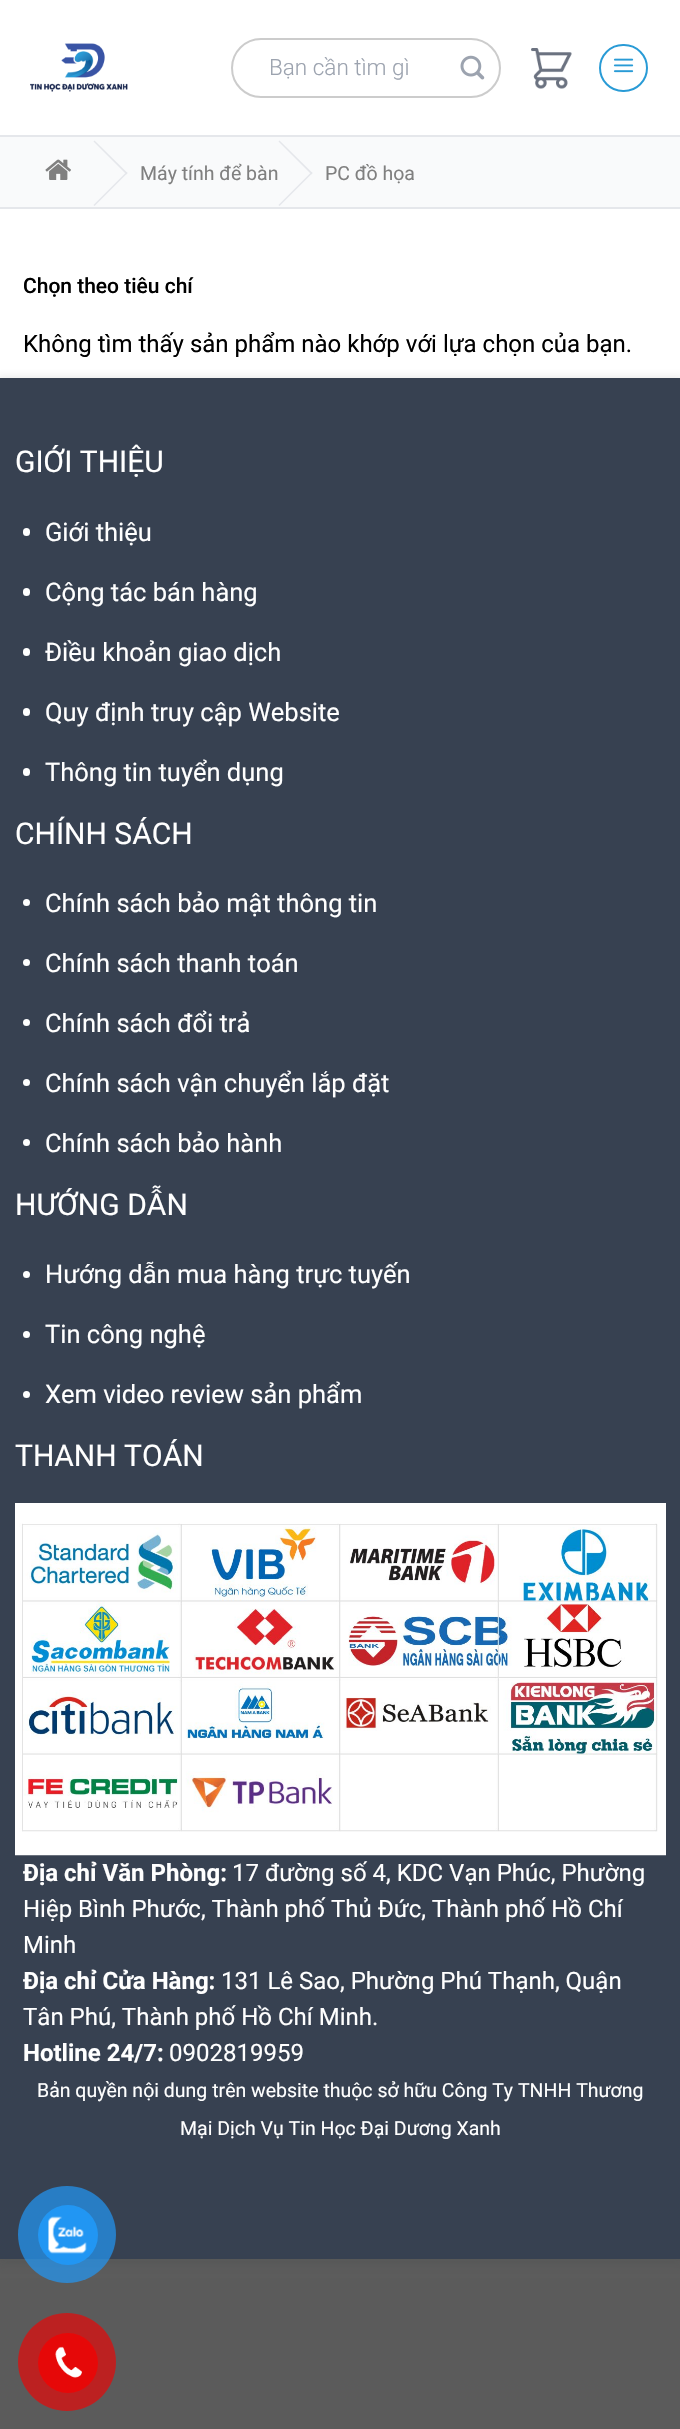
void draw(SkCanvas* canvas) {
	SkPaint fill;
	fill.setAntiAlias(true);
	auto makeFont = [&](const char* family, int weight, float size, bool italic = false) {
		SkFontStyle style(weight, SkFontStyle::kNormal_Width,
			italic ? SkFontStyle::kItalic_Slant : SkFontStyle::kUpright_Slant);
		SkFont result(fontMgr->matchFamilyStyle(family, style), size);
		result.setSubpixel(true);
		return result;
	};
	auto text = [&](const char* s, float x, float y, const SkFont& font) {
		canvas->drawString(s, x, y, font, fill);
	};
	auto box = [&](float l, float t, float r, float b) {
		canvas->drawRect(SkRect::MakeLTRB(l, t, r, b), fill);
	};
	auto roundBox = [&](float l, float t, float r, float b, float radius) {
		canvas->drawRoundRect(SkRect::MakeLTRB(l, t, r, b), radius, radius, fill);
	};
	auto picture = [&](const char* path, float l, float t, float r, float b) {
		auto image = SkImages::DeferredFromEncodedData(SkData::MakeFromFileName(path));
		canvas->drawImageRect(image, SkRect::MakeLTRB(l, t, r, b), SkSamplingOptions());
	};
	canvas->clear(0xFF5B5B5B);
	fill.setColor(0xFFF9FAFB);
	box(0, 137, 680, 207);
	fill.setColor(0xFFFFFFFF);
	box(0, 0, 680, 135);
	picture("image0.png", 30, 43, 128, 92);
	fill.setStyle(SkPaint::kStroke_Style);
	fill.setStrokeWidth(2);
	fill.setColor(0xFFCCCCCC);
	canvas->drawRoundRect(SkRect::MakeLTRB(232, 39, 500, 97), 29, 29, fill);
	picture("image1.png", 460, 55, 485, 80);
	picture("image2.png", 531, 48, 572, 89);
	fill.setColor(0xFF299BD6);
	canvas->drawRoundRect(SkRect::MakeLTRB(600, 45, 647, 91), 23, 23, fill);
	picture("image3.png", 613, 58, 634, 73);
	fill.setStyle(SkPaint::kFill_Style);
	fill.setColor(0xFFE5E7EB);
	box(0, 135, 680, 137);
	box(0, 207, 680, 209);
	picture("image4.png", 45, 159, 71, 180);
	canvas->drawPath(SkPathBuilder().moveTo(94.5f, 140.5f).lineTo(127.5f, 173).lineTo(126.5f, 174.5f).lineTo(93.5f, 141.5f).close().detach(), fill);
	canvas->drawPath(SkPathBuilder().moveTo(126.5f, 172).lineTo(127.5f, 173).lineTo(94.5f, 206).lineTo(93.5f, 205).close().detach(), fill);
	canvas->drawPath(SkPathBuilder().moveTo(279.5f, 140.5f).lineTo(312.5f, 173).lineTo(311.5f, 174.5f).lineTo(278.5f, 141.5f).close().detach(), fill);
	canvas->drawPath(SkPathBuilder().moveTo(311.5f, 172).lineTo(312.5f, 173).lineTo(279.5f, 206).lineTo(278.5f, 205).close().detach(), fill);
	fill.setColor(0xFFFFFFFF);
	box(0, 209, 680, 378);
	fill.setColor(0x263C4043);
	fill.setMaskFilter(SkMaskFilter::MakeBlur(kNormal_SkBlurStyle, 4.5f));
	canvas->drawRect(SkRect::MakeLTRB(-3, 378, 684, 2265), fill);
	fill.setMaskFilter(nullptr);
	fill.setColor(0xFF374151);
	box(0, 378, 680, 2259);
	fill.setColor(0xFFFFFFFF);
	roundBox(23, 528, 30, 536, 3.5f);
	roundBox(23, 588, 30, 596, 3.5f);
	roundBox(23, 648, 30, 656, 3.5f);
	roundBox(23, 708, 30, 716, 3.5f);
	roundBox(23, 768, 30, 776, 3.5f);
	canvas->drawCircle(26.5f, 902.5f, 3.5f, fill);
	canvas->drawCircle(26.5f, 962.5f, 3.5f, fill);
	canvas->drawCircle(26.5f, 1022.5f, 3.5f, fill);
	canvas->drawCircle(26.5f, 1082.5f, 3.5f, fill);
	canvas->drawCircle(26.5f, 1142.5f, 3.5f, fill);
	canvas->drawCircle(26.5f, 1274.5f, 3.5f, fill);
	canvas->drawCircle(26.5f, 1334.5f, 3.5f, fill);
	canvas->drawCircle(26.5f, 1394.5f, 3.5f, fill);
	picture("image5.png", 15, 1503, 666, 1856);
	fill.setColor(0xB32196F3);
	roundBox(18, 2186, 116, 2283, 48.5f);
	fill.setColor(0xFF2196F3);
	canvas->drawCircle(68, 2235, 30, fill);
	picture("image6.png", 48, 2216, 87, 2254);
	fill.setColor(0xFFBC2121);
	canvas->drawCircle(67, 2362, 49, fill);
	fill.setColor(0xFFE60808);
	canvas->drawCircle(68, 2363, 30, fill);
	picture("image7.png", 55, 2346, 82, 2378);
	auto font1 = makeFont("Roboto", 300, 22.5f);
	fill.setColor(0xFF9CA3AF);
	text("Bạn cần tìm gì", 269, 75, font1);
	auto font2 = makeFont("Roboto", 400, 19.5f);
	fill.setColor(0xFF808080);
	text("Máy tính để bàn", 140, 180, font2);
	text("PC đồ họa", 325, 180, font2);
	auto font3 = makeFont("Roboto", 500, 21);
	fill.setColor(0xFF000000);
	text("Chọn theo tiêu chí", 23, 293, font3);
	auto font4 = makeFont("Roboto", 400, 24);
	text("Không tìm thấy sản phẩm nào khớp với lựa chọn của bạn.", 23, 352, font4);
	auto font5 = makeFont("Roboto", 400, 30);
	fill.setColor(0xFFFFFFFF);
	text("GIỚI THIỆU", 15, 472, font5);
	auto font6 = makeFont("Roboto", 400, 25.5f);
	text("Giới thiệu", 45, 541, font6);
	text("Cộng tác bán hàng", 45, 601, font6);
	text("Điều khoản giao dịch", 45, 661, font6);
	text("Quy định truy cập Website", 45, 721, font6);
	text("Thông tin tuyển dụng", 45, 781, font6);
	text("CHÍNH SÁCH", 15, 844, font5);
	text("Chính sách bảo mật thông tin", 45, 912, font6);
	text("Chính sách thanh toán", 45, 972, font6);
	text("Chính sách đổi trả", 45, 1032, font6);
	text("Chính sách vận chuyển lắp đặt", 45, 1092, font6);
	text("Chính sách bảo hành", 45, 1152, font6);
	text("HƯỚNG DẪN", 15, 1215, font5);
	text("Hướng dẫn mua hàng trực tuyến", 45, 1283, font6);
	text("Tin công nghệ", 45, 1343, font6);
	text("Xem video review sản phẩm", 45, 1403, font6);
	text("THANH TOÁN", 15, 1466, font5);
	auto font7 = makeFont("Roboto", 700, 24);
	text("Địa chỉ Văn Phòng:", 23, 1881, font7);
	text("17 đường số 4, KDC Vạn Phúc, Phường", 232, 1881, font4);
	text("Hiệp Bình Phước, Thành phố Thủ Đức, Thành phố Hồ Chí", 23, 1917, font4);
	text("Minh", 23, 1953, font4);
	text("Địa chỉ Cửa Hàng:", 23, 1989, font7);
	text("131 Lê Sao, Phường Phú Thạnh, Quận", 221, 1989, font4);
	text("Tân Phú, Thành phố Hồ Chí Minh.", 23, 2025, font4);
	text("Hotline 24/7:", 23, 2061, font7);
	text("0902819959", 169, 2061, font4);
	text("Bản quyền nội dung trên website thuộc sở hữu Công Ty TNHH Thương", 37, 2097, font2);
	text("Mại Dịch Vụ Tin Học Đại Dương Xanh", 180, 2135, font2);
}
